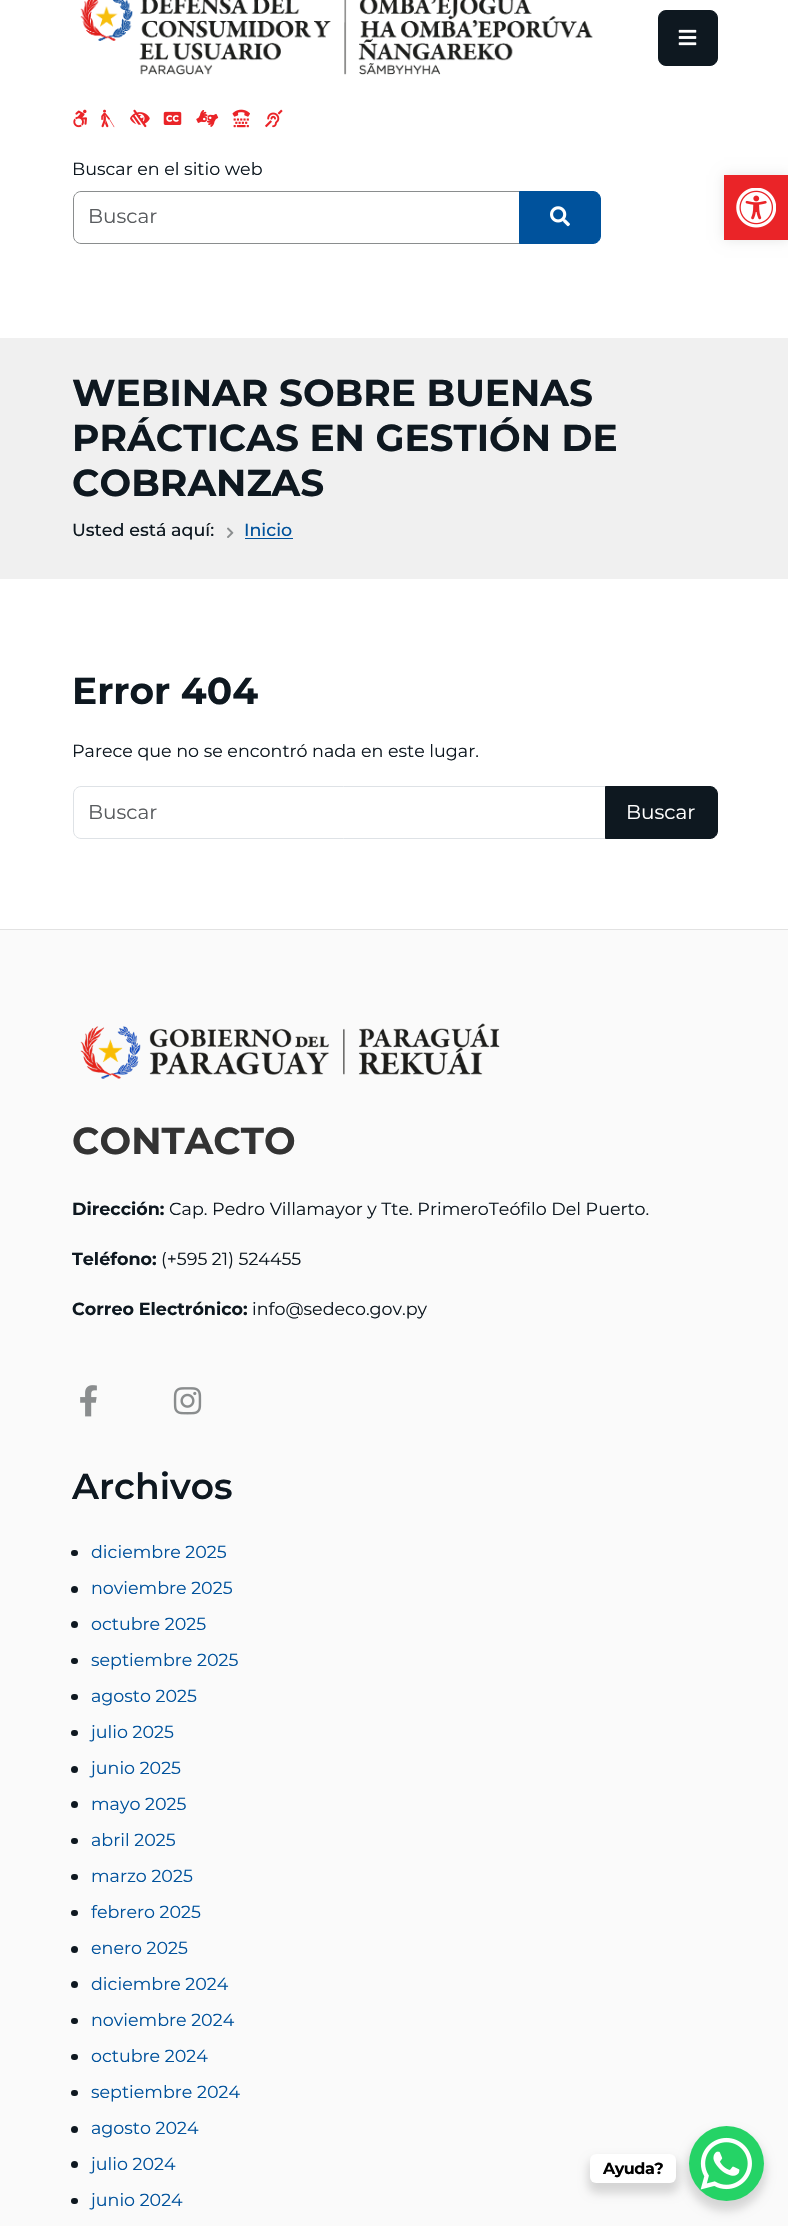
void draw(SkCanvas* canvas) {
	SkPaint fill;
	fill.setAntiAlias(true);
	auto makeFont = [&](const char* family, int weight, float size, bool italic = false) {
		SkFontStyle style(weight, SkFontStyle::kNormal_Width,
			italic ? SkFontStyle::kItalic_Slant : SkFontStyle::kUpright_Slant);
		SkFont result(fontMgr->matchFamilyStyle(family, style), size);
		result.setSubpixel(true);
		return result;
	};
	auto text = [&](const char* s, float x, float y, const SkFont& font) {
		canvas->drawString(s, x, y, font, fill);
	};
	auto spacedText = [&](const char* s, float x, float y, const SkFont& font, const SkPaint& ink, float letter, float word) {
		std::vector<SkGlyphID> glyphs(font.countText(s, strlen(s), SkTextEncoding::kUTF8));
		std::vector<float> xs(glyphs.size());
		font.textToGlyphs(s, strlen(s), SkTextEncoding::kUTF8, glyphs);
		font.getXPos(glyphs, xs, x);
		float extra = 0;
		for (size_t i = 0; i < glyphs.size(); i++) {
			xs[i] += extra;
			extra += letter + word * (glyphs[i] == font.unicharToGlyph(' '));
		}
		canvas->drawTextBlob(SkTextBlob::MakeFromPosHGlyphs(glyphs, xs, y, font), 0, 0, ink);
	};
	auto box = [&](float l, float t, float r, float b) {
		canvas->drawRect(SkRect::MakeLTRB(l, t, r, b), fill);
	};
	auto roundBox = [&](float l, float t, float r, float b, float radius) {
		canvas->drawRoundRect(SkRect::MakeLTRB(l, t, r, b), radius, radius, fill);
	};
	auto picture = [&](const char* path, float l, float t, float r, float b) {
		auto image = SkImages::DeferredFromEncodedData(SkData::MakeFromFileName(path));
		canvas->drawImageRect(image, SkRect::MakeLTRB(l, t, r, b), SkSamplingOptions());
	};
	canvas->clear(0xFFFFFFFF);
	picture("image0.png", 80, 0, 593, 75);
	fill.setColor(0xFF0E1820);
	canvas->drawRoundRect(SkRect::MakeLTRB(658.5f, 10.5f, 717.5f, 65.5f), 7.5f, 7.5f, fill);
	fill.setStyle(SkPaint::kStroke_Style);
	fill.setStrokeWidth(1);
	canvas->drawRoundRect(SkRect::MakeLTRB(658.5f, 10.5f, 717.5f, 65.5f), 7.5f, 7.5f, fill);
	picture("image1.png", 678, 29, 697, 46);
	picture("image2.png", 73, 109, 87, 128);
	picture("image3.png", 101, 109, 115, 128);
	picture("image4.png", 130, 109, 150, 128);
	picture("image5.png", 163, 111, 182, 125);
	picture("image6.png", 196, 110, 219, 127);
	picture("image7.png", 232, 109, 250, 128);
	picture("image8.png", 265, 109, 283, 128);
	fill.setColor(0xFF8A8D8E);
	canvas->drawPath(SkPathBuilder().moveTo(81, 191.5f).lineTo(519.5f, 191.5f).lineTo(519.5f, 243.5f).lineTo(81, 243.5f).cubicTo(77, 243.5f, 73.5f, 240, 73.5f, 236).lineTo(73.5f, 199).cubicTo(73.5f, 195, 77, 191.5f, 81, 191.5f).close().detach(), fill);
	fill.setStyle(SkPaint::kFill_Style);
	fill.setColor(0xFF00529C);
	canvas->drawPath(SkPathBuilder().moveTo(519.5f, 191.5f).lineTo(593, 191.5f).cubicTo(597, 191.5f, 600.5f, 195, 600.5f, 199).lineTo(600.5f, 236).cubicTo(600.5f, 240, 597, 243.5f, 593, 243.5f).lineTo(519.5f, 243.5f).close().detach(), fill);
	fill.setStyle(SkPaint::kStroke_Style);
	canvas->drawPath(SkPathBuilder().moveTo(519.5f, 191.5f).lineTo(593, 191.5f).cubicTo(597, 191.5f, 600.5f, 195, 600.5f, 199).lineTo(600.5f, 236).cubicTo(600.5f, 240, 597, 243.5f, 593, 243.5f).lineTo(519.5f, 243.5f).close().detach(), fill);
	picture("image9.png", 550, 206, 570, 227);
	fill.setStyle(SkPaint::kFill_Style);
	fill.setColor(0xFFF0F0F0);
	box(0, 338, 788, 579);
	picture("image10.png", 227, 527, 234, 538);
	fill.setColor(0xFF00529C);
	box(245, 538, 293, 539);
	fill.setStyle(SkPaint::kStroke_Style);
	fill.setColor(0xFFDEE2E6);
	canvas->drawPath(SkPathBuilder().moveTo(81, 786.5f).lineTo(605.5f, 786.5f).lineTo(605.5f, 838.5f).lineTo(81, 838.5f).cubicTo(77, 838.5f, 73.5f, 835, 73.5f, 831).lineTo(73.5f, 794).cubicTo(73.5f, 790, 77, 786.5f, 81, 786.5f).close().detach(), fill);
	fill.setStyle(SkPaint::kFill_Style);
	fill.setColor(0xFF0E1820);
	canvas->drawPath(SkPathBuilder().moveTo(605.5f, 786.5f).lineTo(710, 786.5f).cubicTo(714, 786.5f, 717.5f, 790, 717.5f, 794).lineTo(717.5f, 831).cubicTo(717.5f, 835, 714, 838.5f, 710, 838.5f).lineTo(605.5f, 838.5f).close().detach(), fill);
	fill.setStyle(SkPaint::kStroke_Style);
	canvas->drawPath(SkPathBuilder().moveTo(605.5f, 786.5f).lineTo(710, 786.5f).cubicTo(714, 786.5f, 717.5f, 790, 717.5f, 794).lineTo(717.5f, 831).cubicTo(717.5f, 835, 714, 838.5f, 710, 838.5f).lineTo(605.5f, 838.5f).close().detach(), fill);
	fill.setStyle(SkPaint::kFill_Style);
	fill.setColor(0x1A000000);
	fill.setMaskFilter(SkMaskFilter::MakeBlur(kNormal_SkBlurStyle, 6));
	canvas->drawRect(SkRect::MakeLTRB(724, 175, 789, 240), fill);
	fill.setMaskFilter(nullptr);
	fill.setColor(0xFFEA2428);
	box(724, 175, 788, 240);
	picture("image11.png", 736, 188, 776, 228);
	fill.setColor(0xFFFAFAFA);
	box(0, 930, 788, 2226);
	fill.setColor(0xFFE2E2E2);
	box(0, 929, 788, 930);
	picture("image12.png", 80, 1023, 500, 1079);
	picture("image13.png", 80, 1385, 97, 1417);
	picture("image14.png", 173, 1387, 202, 1415);
	fill.setColor(0xFF0E1820);
	roundBox(71, 1550, 78, 1556, 3);
	canvas->drawCircle(74.5f, 1589.5f, 3.5f, fill);
	canvas->drawCircle(74.5f, 1624.5f, 3.5f, fill);
	roundBox(71, 1658, 78, 1664, 3);
	roundBox(71, 1694, 78, 1700, 3);
	roundBox(71, 1730, 78, 1736, 3);
	canvas->drawCircle(74.5f, 1769.5f, 3.5f, fill);
	canvas->drawCircle(74.5f, 1804.5f, 3.5f, fill);
	roundBox(71, 1838, 78, 1844, 3);
	roundBox(71, 1874, 78, 1880, 3);
	roundBox(71, 1910, 78, 1916, 3);
	canvas->drawCircle(74.5f, 1949.5f, 3.5f, fill);
	canvas->drawCircle(74.5f, 1984.5f, 3.5f, fill);
	roundBox(71, 2018, 78, 2024, 3);
	roundBox(71, 2054, 78, 2060, 3);
	roundBox(71, 2090, 78, 2096, 3);
	canvas->drawCircle(74.5f, 2129.5f, 3.5f, fill);
	canvas->drawCircle(74.5f, 2164.5f, 3.5f, fill);
	roundBox(71, 2198, 78, 2204, 3);
	fill.setColor(0x26000000);
	fill.setMaskFilter(SkMaskFilter::MakeBlur(kNormal_SkBlurStyle, 5));
	canvas->drawRoundRect(SkRect::MakeLTRB(686, 2131, 766, 2211), 40, 40, fill);
	fill.setMaskFilter(nullptr);
	fill.setColor(0xFF25D366);
	canvas->drawCircle(726.5f, 2163.5f, 37.5f, fill);
	fill.setColor(0x26000000);
	fill.setMaskFilter(SkMaskFilter::MakeBlur(kNormal_SkBlurStyle, 5));
	canvas->drawRoundRect(SkRect::MakeLTRB(588, 2159, 679, 2193), 9, 9, fill);
	fill.setMaskFilter(nullptr);
	fill.setColor(0xFFFFFFFF);
	roundBox(590, 2154, 676, 2183, 6);
	picture("image15.png", 700, 2137, 752, 2190);
	auto font1 = makeFont("Montserrat", 400, 17.5f);
	fill.setColor(0xFF0E1820);
	text("Buscar en el sitio web", 72, 175, font1);
	auto font2 = makeFont("Montserrat", 400, 20);
	fill.setColor(0xFF595C5F);
	text("Buscar", 88, 223, font2);
	auto font3 = makeFont("Montserrat", 700, 37.5f);
	fill.setColor(0xFF0E1820);
	text("WEBINAR SOBRE BUENAS", 72, 406, font3);
	text("PRÁCTICAS EN GESTIÓN DE", 72, 451, font3);
	text("COBRANZAS", 72, 496, font3);
	auto font4 = makeFont("Montserrat", 500, 17.5f);
	text("Usted está aquí:", 72, 536, font4);
	fill.setColor(0xFF00529C);
	text("Inicio", 244, 536, font4);
	fill.setColor(0xFF0E1820);
	text("Error 404", 72, 704, font3);
	text("Parece que no se encontró nada en este lugar.", 72, 757, font1);
	fill.setColor(0xFF595C5F);
	text("Buscar", 88, 819, font2);
	fill.setColor(0xFFFFFFFF);
	text("Buscar", 626, 819, font2);
	fill.setColor(0xFF333333);
	text("CONTACTO", 72, 1154, font3);
	auto font5 = makeFont("Montserrat", 700, 17.5f);
	fill.setColor(0xFF0E1820);
	text("Dirección:", 72, 1215, font5);
	text("Cap. Pedro Villamayor y Tte. PrimeroTeófilo Del Puerto.", 169, 1215, font1);
	text("Teléfono:", 72, 1265, font5);
	text("(+595 21) 524455", 161, 1265, font1);
	text("Correo Electrónico:", 72, 1315, font5);
	text("info@sedeco.gov.py", 252, 1315, font1);
	auto font6 = makeFont("Montserrat", 600, 36);
	text("Archivos", 72, 1499, font6);
	fill.setColor(0xFF00529C);
	text("diciembre 2025", 91, 1558, font1);
	text("noviembre 2025", 91, 1594, font1);
	text("octubre 2025", 91, 1630, font1);
	text("septiembre 2025", 91, 1666, font1);
	text("agosto 2025", 91, 1702, font1);
	text("julio 2025", 91, 1738, font1);
	text("junio 2025", 91, 1774, font1);
	text("mayo 2025", 91, 1810, font1);
	text("abril 2025", 91, 1846, font1);
	text("marzo 2025", 91, 1882, font1);
	text("febrero 2025", 91, 1918, font1);
	text("enero 2025", 91, 1954, font1);
	text("diciembre 2024", 91, 1990, font1);
	text("noviembre 2024", 91, 2026, font1);
	text("octubre 2024", 91, 2062, font1);
	text("septiembre 2024", 91, 2098, font1);
	text("agosto 2024", 91, 2134, font1);
	text("julio 2024", 91, 2170, font1);
	text("junio 2024", 91, 2206, font1);
	auto font7 = makeFont("Montserrat", 700, 16);
	fill.setColor(0xFF000000);
	spacedText("Ayuda?", 603, 2174, font7, fill, -0.5f, 0);
}
